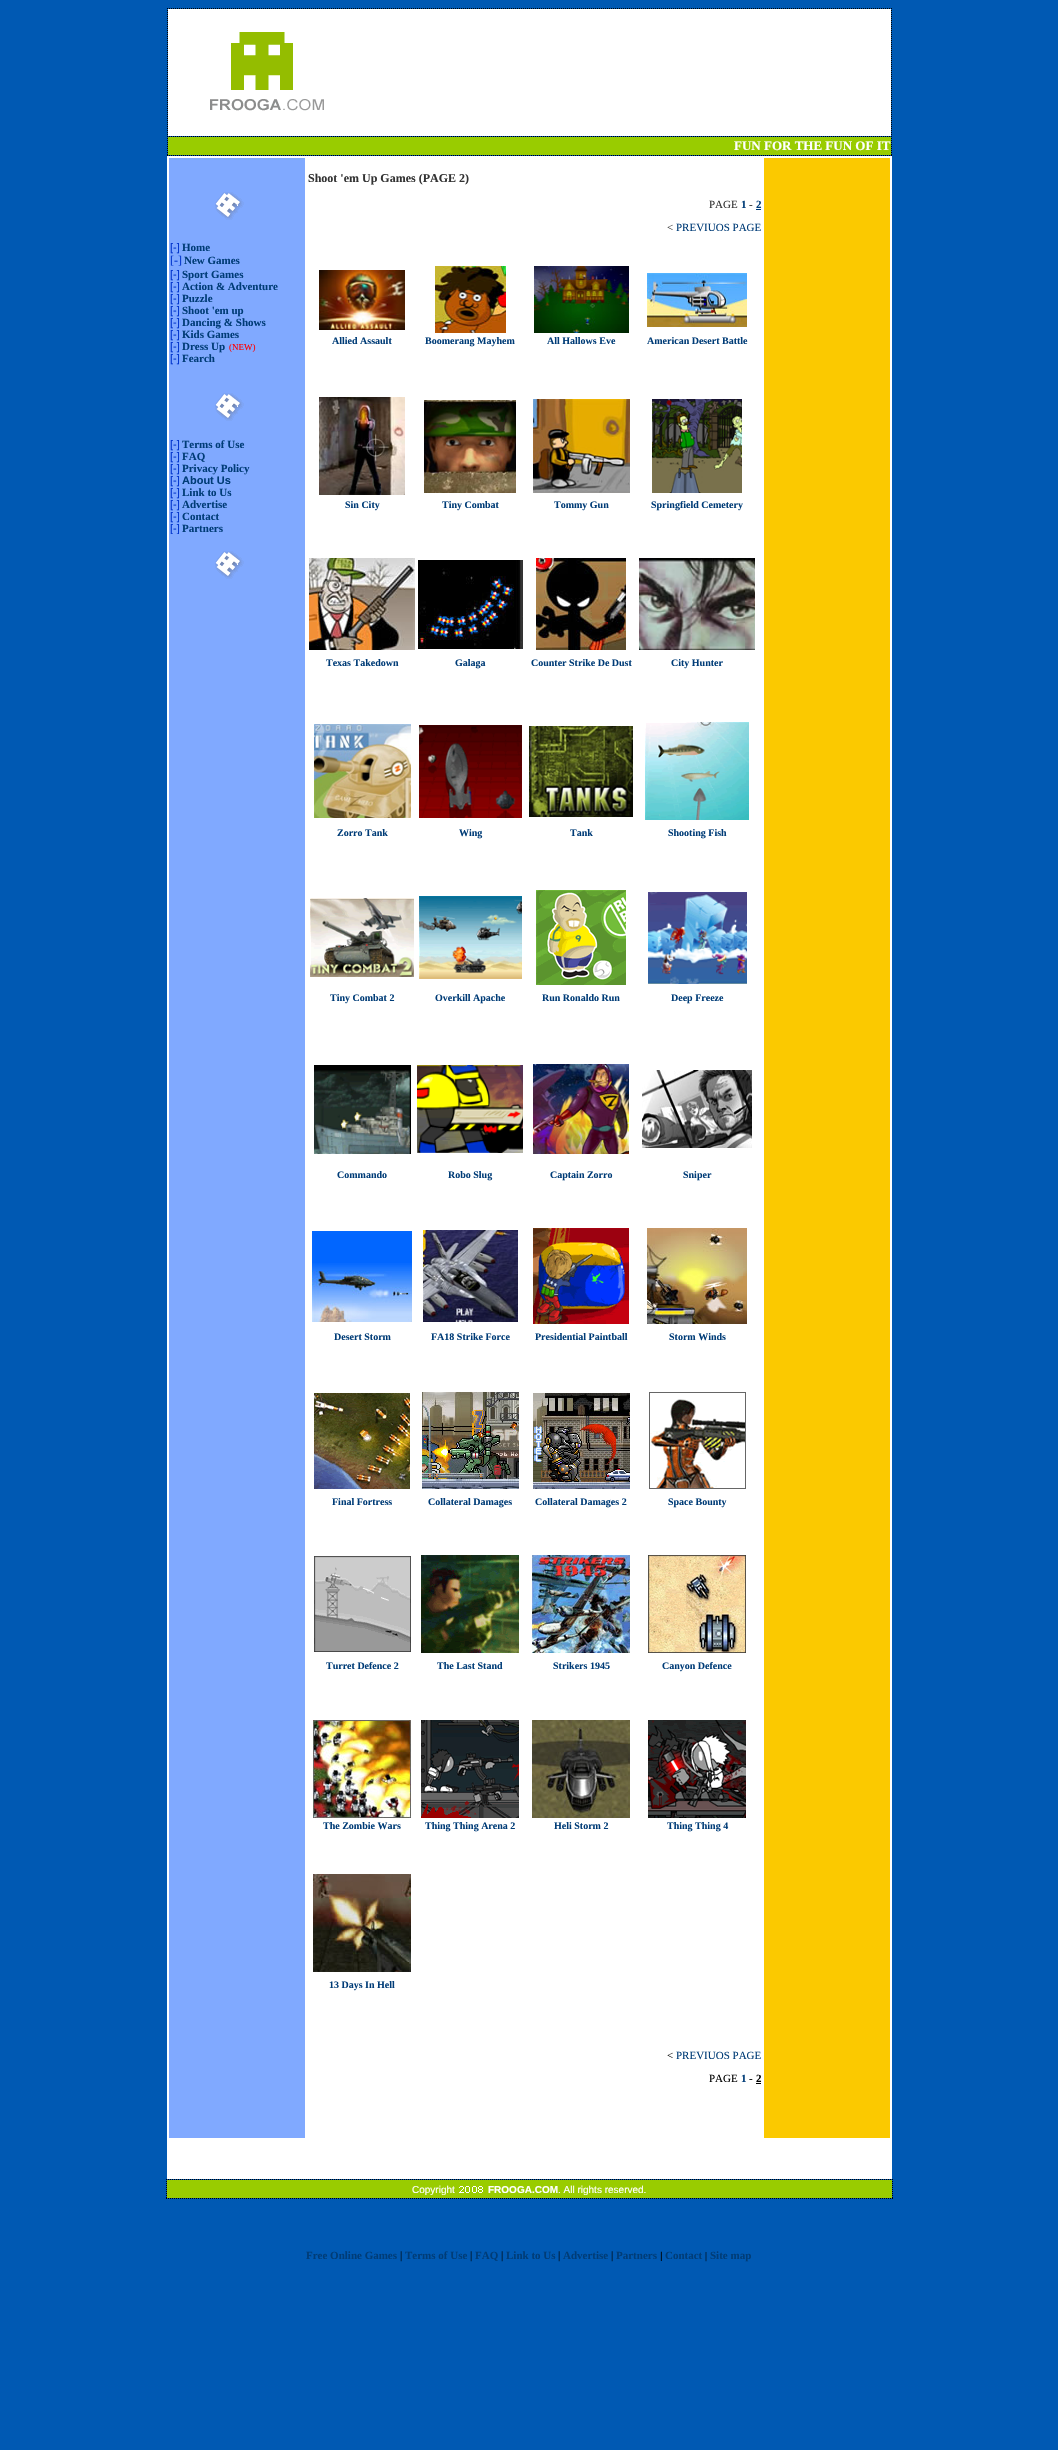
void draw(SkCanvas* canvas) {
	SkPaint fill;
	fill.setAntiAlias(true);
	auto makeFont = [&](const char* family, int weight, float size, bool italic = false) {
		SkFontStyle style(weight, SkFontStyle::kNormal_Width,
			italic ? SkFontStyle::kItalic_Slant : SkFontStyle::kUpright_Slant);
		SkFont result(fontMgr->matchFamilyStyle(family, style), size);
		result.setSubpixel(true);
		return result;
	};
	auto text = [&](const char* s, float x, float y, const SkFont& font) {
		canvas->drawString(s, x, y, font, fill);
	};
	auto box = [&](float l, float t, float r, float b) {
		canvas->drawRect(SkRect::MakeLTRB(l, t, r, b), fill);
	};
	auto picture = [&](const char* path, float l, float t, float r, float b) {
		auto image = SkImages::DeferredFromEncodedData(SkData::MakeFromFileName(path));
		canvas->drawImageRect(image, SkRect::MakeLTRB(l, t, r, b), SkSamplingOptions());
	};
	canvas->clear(0xFF0059B3);
	fill.setStyle(SkPaint::kStroke_Style);
	fill.setStrokeWidth(1);
	fill.setColor(0xFF000000);
	fill.setPathEffect(SkDashPathEffect::Make({{1, 1}}, 0));
	canvas->drawPath(SkPathBuilder().moveTo(167, 8.5f).lineTo(892, 8.5f).detach(), fill);
	fill.setPathEffect(nullptr);
	fill.setPathEffect(SkDashPathEffect::Make({{1, 1}}, 0));
	canvas->drawPath(SkPathBuilder().moveTo(891.5f, 8).lineTo(891.5f, 136).detach(), fill);
	fill.setPathEffect(nullptr);
	fill.setPathEffect(SkDashPathEffect::Make({{1, 1}}, 0));
	canvas->drawPath(SkPathBuilder().moveTo(167.5f, 8).lineTo(167.5f, 136).detach(), fill);
	fill.setPathEffect(nullptr);
	fill.setStyle(SkPaint::kFill_Style);
	fill.setColor(0xFFFFFFFF);
	box(168, 9, 891, 136);
	picture("image0.png", 210, 32, 324, 111);
	fill.setStyle(SkPaint::kStroke_Style);
	fill.setColor(0xFF000000);
	fill.setPathEffect(SkDashPathEffect::Make({{1, 1}}, 0));
	canvas->drawPath(SkPathBuilder().moveTo(167, 136.5f).lineTo(892, 136.5f).detach(), fill);
	fill.setPathEffect(nullptr);
	fill.setPathEffect(SkDashPathEffect::Make({{1, 1}}, 0));
	canvas->drawPath(SkPathBuilder().moveTo(891.5f, 136).lineTo(891.5f, 156).detach(), fill);
	fill.setPathEffect(nullptr);
	fill.setPathEffect(SkDashPathEffect::Make({{1, 1}}, 0));
	canvas->drawPath(SkPathBuilder().moveTo(167, 155.5f).lineTo(892, 155.5f).detach(), fill);
	fill.setPathEffect(nullptr);
	fill.setPathEffect(SkDashPathEffect::Make({{1, 1}}, 0));
	canvas->drawPath(SkPathBuilder().moveTo(167.5f, 136).lineTo(167.5f, 156).detach(), fill);
	fill.setPathEffect(nullptr);
	fill.setStyle(SkPaint::kFill_Style);
	fill.setColor(0xFF99CC00);
	box(168, 137, 891, 155);
	fill.setStyle(SkPaint::kStroke_Style);
	fill.setColor(0xFFFFFFFF);
	canvas->drawRect(SkRect::MakeLTRB(167.5f, 156.5f, 891.5f, 2139.5f), fill);
	fill.setStyle(SkPaint::kFill_Style);
	box(306, 157, 763, 2139);
	fill.setColor(0xFF80A9FF);
	canvas->drawRect(SkRect::MakeLTRB(168.5f, 157.5f, 305.5f, 2138.5f), fill);
	fill.setStyle(SkPaint::kStroke_Style);
	fill.setColor(0xFFFFFFFF);
	canvas->drawRect(SkRect::MakeLTRB(168.5f, 157.5f, 305.5f, 2138.5f), fill);
	picture("image1.png", 215, 192, 244, 220);
	picture("image1.png", 215, 393, 244, 421);
	fill.setStyle(SkPaint::kFill_Style);
	fill.setColor(0xFF003C77);
	box(756, 209, 761, 210);
	picture("image3.png", 319, 270, 405, 330);
	picture("image4.png", 435, 266, 506, 333);
	picture("image5.png", 534, 266, 629, 333);
	picture("image6.png", 647, 273, 747, 327);
	picture("image7.png", 319, 397, 405, 495);
	picture("image8.png", 424, 400, 516, 493);
	picture("image9.png", 533, 399, 630, 493);
	picture("image10.png", 652, 399, 742, 493);
	picture("image11.png", 309, 558, 415, 650);
	picture("image12.png", 418, 560, 523, 649);
	picture("image13.png", 536, 558, 626, 650);
	picture("image14.png", 639, 558, 755, 650);
	picture("image15.png", 314, 724, 411, 818);
	picture("image16.png", 419, 725, 522, 818);
	picture("image17.png", 529, 726, 633, 817);
	picture("image18.png", 645, 722, 749, 820);
	picture("image19.png", 310, 898, 414, 977);
	picture("image20.png", 419, 896, 522, 979);
	picture("image21.png", 536, 890, 626, 985);
	picture("image22.png", 648, 892, 747, 984);
	picture("image23.png", 314, 1065, 411, 1154);
	picture("image24.png", 417, 1065, 523, 1153);
	picture("image25.png", 533, 1064, 629, 1154);
	picture("image26.png", 642, 1070, 752, 1148);
	picture("image27.png", 312, 1231, 412, 1322);
	picture("image28.png", 423, 1230, 518, 1322);
	picture("image29.png", 533, 1228, 629, 1324);
	picture("image30.png", 647, 1228, 747, 1324);
	picture("image31.png", 314, 1393, 410, 1489);
	picture("image32.png", 422, 1392, 519, 1489);
	picture("image33.png", 533, 1393, 630, 1489);
	picture("image34.png", 649, 1392, 746, 1489);
	picture("image35.png", 314, 1556, 411, 1652);
	picture("image36.png", 421, 1555, 519, 1653);
	picture("image37.png", 532, 1555, 630, 1653);
	picture("image38.png", 648, 1555, 746, 1653);
	picture("image39.png", 313, 1720, 411, 1818);
	picture("image40.png", 421, 1720, 519, 1818);
	picture("image41.png", 532, 1720, 630, 1818);
	picture("image42.png", 648, 1720, 746, 1818);
	picture("image43.png", 313, 1874, 411, 1972);
	fill.setColor(0xFF000000);
	box(756, 2083, 761, 2084);
	fill.setColor(0xFFFBC900);
	canvas->drawRect(SkRect::MakeLTRB(763.5f, 157.5f, 890.5f, 2138.5f), fill);
	fill.setStyle(SkPaint::kStroke_Style);
	fill.setColor(0xFFFFFFFF);
	canvas->drawRect(SkRect::MakeLTRB(763.5f, 157.5f, 890.5f, 2138.5f), fill);
	fill.setStyle(SkPaint::kFill_Style);
	box(167, 2140, 892, 2179);
	fill.setStyle(SkPaint::kStroke_Style);
	fill.setColor(0xFF000000);
	fill.setPathEffect(SkDashPathEffect::Make({{1, 1}}, 0));
	canvas->drawPath(SkPathBuilder().moveTo(166, 2179.5f).lineTo(893, 2179.5f).detach(), fill);
	fill.setPathEffect(nullptr);
	fill.setPathEffect(SkDashPathEffect::Make({{1, 1}}, 0));
	canvas->drawPath(SkPathBuilder().moveTo(892.5f, 2179).lineTo(892.5f, 2199).detach(), fill);
	fill.setPathEffect(nullptr);
	fill.setPathEffect(SkDashPathEffect::Make({{1, 1}}, 0));
	canvas->drawPath(SkPathBuilder().moveTo(166, 2198.5f).lineTo(893, 2198.5f).detach(), fill);
	fill.setPathEffect(nullptr);
	fill.setPathEffect(SkDashPathEffect::Make({{1, 1}}, 0));
	canvas->drawPath(SkPathBuilder().moveTo(166.5f, 2179).lineTo(166.5f, 2199).detach(), fill);
	fill.setPathEffect(nullptr);
	fill.setStyle(SkPaint::kFill_Style);
	fill.setColor(0xFF99CC00);
	box(167, 2180, 892, 2198);
	picture("image44.png", 459, 2186, 483, 2193);
	auto font1 = makeFont("Liberation Serif", 700, 13);
	fill.setColor(0xFFFFFFFF);
	text("FUN FOR THE FUN OF IT", 734, 150, font1);
	auto font2 = makeFont("Liberation Sans", 400, 11);
	fill.setColor(0xFF0033CC);
	text("[-]", 170, 251, font2);
	auto font3 = makeFont("Liberation Serif", 700, 11);
	fill.setColor(0xFF003C77);
	text("Home", 182, 251, font3);
	auto font4 = makeFont("Liberation Serif", 400, 12);
	fill.setColor(0xFF0033CC);
	text("[-]", 170, 264, font4);
	fill.setColor(0xFF003C77);
	text("New Games", 184, 264, font3);
	fill.setColor(0xFF0033CC);
	text("[-]", 170, 278, font2);
	fill.setColor(0xFF003C77);
	text("Sport Games", 182, 278, font3);
	fill.setColor(0xFF0033CC);
	text("[-]", 170, 290, font2);
	fill.setColor(0xFF003C77);
	text("Action & Adventure", 182, 290, font3);
	fill.setColor(0xFF0033CC);
	text("[-]", 170, 302, font2);
	fill.setColor(0xFF003C77);
	text("Puzzle", 182, 302, font3);
	fill.setColor(0xFF0033CC);
	text("[-]", 170, 314, font2);
	fill.setColor(0xFF003C77);
	text("Shoot 'em up", 182, 314, font3);
	fill.setColor(0xFF0033CC);
	text("[-]", 170, 326, font2);
	fill.setColor(0xFF003C77);
	text("Dancing & Shows", 182, 326, font3);
	fill.setColor(0xFF0033CC);
	text("[-]", 170, 338, font2);
	fill.setColor(0xFF003C77);
	text("Kids Games", 182, 338, font3);
	fill.setColor(0xFF0033CC);
	text("[-]", 170, 350, font2);
	fill.setColor(0xFF003C77);
	text("Dress Up", 182, 350, font3);
	auto font5 = makeFont("Liberation Serif", 400, 9);
	fill.setColor(0xFFFF0000);
	text("(NEW)", 229, 350, font5);
	fill.setColor(0xFF0033CC);
	text("[-]", 170, 362, font2);
	fill.setColor(0xFF003C77);
	text("Fearch", 182, 362, font3);
	fill.setColor(0xFF0033CC);
	text("[-]", 170, 448, font2);
	fill.setColor(0xFF003C77);
	text("Terms of Use", 182, 448, font3);
	fill.setColor(0xFF0033CC);
	text("[-]", 170, 460, font2);
	fill.setColor(0xFF003C77);
	text("FAQ", 182, 460, font3);
	fill.setColor(0xFF0033CC);
	text("[-]", 170, 472, font2);
	fill.setColor(0xFF003C77);
	text("Privacy Policy", 182, 472, font3);
	fill.setColor(0xFF0033CC);
	text("[-]", 170, 484, font2);
	auto font6 = makeFont("Liberation Sans", 700, 11);
	fill.setColor(0xFF003C77);
	text("About Us", 182, 484, font6);
	fill.setColor(0xFF0033CC);
	text("[-]", 170, 496, font2);
	fill.setColor(0xFF003C77);
	text("Link to Us", 182, 496, font3);
	fill.setColor(0xFF0033CC);
	text("[-]", 170, 508, font2);
	fill.setColor(0xFF003C77);
	text("Advertise", 182, 508, font3);
	fill.setColor(0xFF0033CC);
	text("[-]", 170, 520, font2);
	fill.setColor(0xFF003C77);
	text("Contact", 182, 520, font3);
	fill.setColor(0xFF0033CC);
	text("[-]", 170, 532, font2);
	fill.setColor(0xFF003C77);
	text("Partners", 182, 532, font3);
	picture("image2.png", 170, 534, 244, 579);
	auto font7 = makeFont("Liberation Serif", 700, 12);
	fill.setColor(0xFF333333);
	text("Shoot 'em Up Games (PAGE 2)", 308, 182, font7);
	auto font8 = makeFont("Liberation Serif", 400, 11);
	text("PAGE", 709, 208, font8);
	fill.setColor(0xFF003C77);
	text("1", 741, 208, font3);
	fill.setColor(0xFF333333);
	text("-", 749, 208, font8);
	fill.setColor(0xFF003C77);
	text("2", 756, 208, font3);
	fill.setColor(0xFF333333);
	text("<", 667, 231, font8);
	fill.setColor(0xFF003C77);
	text("PREVIUOS PAGE", 676, 231, font8);
	auto font9 = makeFont("Liberation Serif", 700, 10);
	text("Allied Assault", 332, 344, font9);
	text("Boomerang Mayhem", 425, 344, font9);
	text("All Hallows Eve", 547, 344, font9);
	text("American Desert Battle", 647, 344, font9);
	text("Sin City", 345, 508, font9);
	text("Tiny Combat", 442, 508, font9);
	text("Tommy Gun", 554, 508, font9);
	text("Springfield Cemetery", 651, 508, font9);
	text("Texas Takedown", 326, 666, font9);
	text("Galaga", 455, 666, font9);
	text("Counter Strike De Dust", 531, 666, font9);
	text("City Hunter", 671, 666, font9);
	text("Zorro Tank", 337, 836, font9);
	text("Wing", 459, 836, font9);
	text("Tank", 570, 836, font9);
	text("Shooting Fish", 668, 836, font9);
	text("Tiny Combat 2", 330, 1001, font9);
	text("Overkill Apache", 435, 1001, font9);
	text("Run Ronaldo Run", 542, 1001, font9);
	text("Deep Freeze", 671, 1001, font9);
	text("Commando", 337, 1178, font9);
	text("Robo Slug", 448, 1178, font9);
	text("Captain Zorro", 550, 1178, font9);
	text("Sniper", 683, 1178, font9);
	text("Desert Storm", 334, 1340, font9);
	text("FA18 Strike Force", 431, 1340, font9);
	text("Presidential Paintball", 535, 1340, font9);
	text("Storm Winds", 669, 1340, font9);
	text("Final Fortress", 332, 1505, font9);
	text("Collateral Damages", 428, 1505, font9);
	text("Collateral Damages 2", 535, 1505, font9);
	text("Space Bounty", 668, 1505, font9);
	text("Turret Defence 2", 326, 1669, font9);
	text("The Last Stand", 437, 1669, font9);
	text("Strikers 1945", 553, 1669, font9);
	text("Canyon Defence", 662, 1669, font9);
	text("The Zombie Wars", 323, 1829, font9);
	text("Thing Thing Arena 2", 425, 1829, font9);
	text("Heli Storm 2", 554, 1829, font9);
	text("Thing Thing 4", 667, 1829, font9);
	text("13 Days In Hell", 329, 1988, font9);
	fill.setColor(0xFF000000);
	text("<", 667, 2059, font8);
	fill.setColor(0xFF003C77);
	text("PREVIUOS PAGE", 676, 2059, font8);
	fill.setColor(0xFF000000);
	text("PAGE", 709, 2082, font8);
	fill.setColor(0xFF003C77);
	text("1", 741, 2082, font3);
	fill.setColor(0xFF000000);
	text("-", 749, 2082, font8);
	text("2", 756, 2082, font3);
	auto font10 = makeFont("Liberation Sans", 400, 10);
	fill.setColor(0xFFFFFFFF);
	text("Copyright", 412, 2193, font10);
	auto font11 = makeFont("Liberation Sans", 700, 10);
	text("FROOGA.COM", 488, 2193, font11);
	text(". All rights reserved.", 558, 2193, font10);
	fill.setColor(0xFF003C77);
	text("Free Online Games", 306, 2259, font3);
	fill.setColor(0xFF000000);
	text("|", 400, 2259, font8);
	fill.setColor(0xFF003C77);
	text("Terms of Use", 405, 2259, font3);
	fill.setColor(0xFF000000);
	text("|", 470, 2259, font8);
	fill.setColor(0xFF003C77);
	text("FAQ", 475, 2259, font3);
	fill.setColor(0xFF000000);
	text("|", 501, 2259, font8);
	fill.setColor(0xFF003C77);
	text("Link to Us", 506, 2259, font3);
	fill.setColor(0xFF000000);
	text("|", 558, 2259, font8);
	fill.setColor(0xFF003C77);
	text("Advertise", 563, 2259, font3);
	fill.setColor(0xFF000000);
	text("|", 611, 2259, font8);
	fill.setColor(0xFF003C77);
	text("Partners", 616, 2259, font3);
	fill.setColor(0xFF000000);
	text("|", 660, 2259, font10);
	fill.setColor(0xFF003C77);
	text("Contact", 665, 2259, font3);
	auto font12 = makeFont("Liberation Serif", 400, 10);
	fill.setColor(0xFF000000);
	text("|", 705, 2259, font12);
	fill.setColor(0xFF003C77);
	text("Site map", 710, 2259, font3);
}
